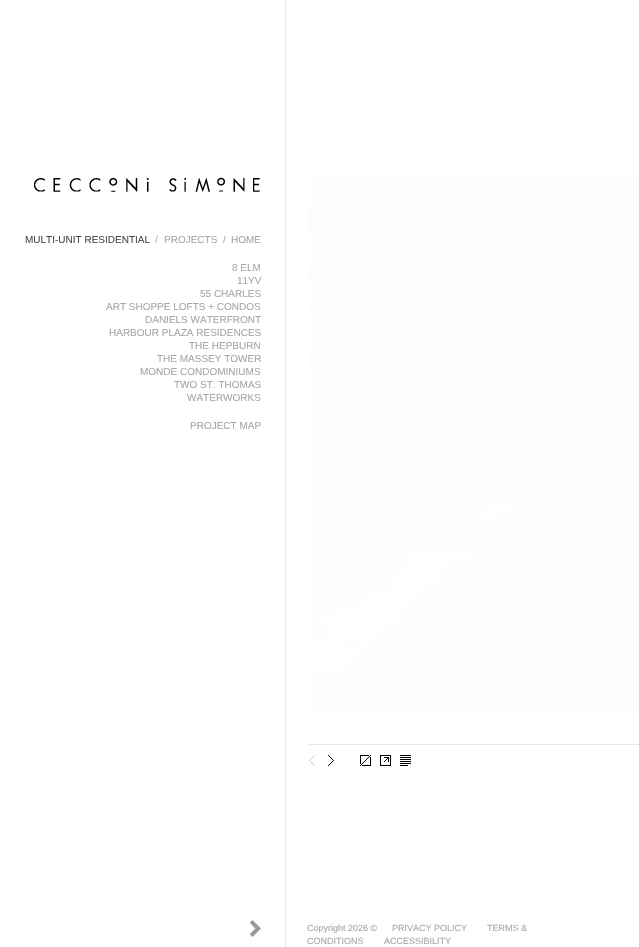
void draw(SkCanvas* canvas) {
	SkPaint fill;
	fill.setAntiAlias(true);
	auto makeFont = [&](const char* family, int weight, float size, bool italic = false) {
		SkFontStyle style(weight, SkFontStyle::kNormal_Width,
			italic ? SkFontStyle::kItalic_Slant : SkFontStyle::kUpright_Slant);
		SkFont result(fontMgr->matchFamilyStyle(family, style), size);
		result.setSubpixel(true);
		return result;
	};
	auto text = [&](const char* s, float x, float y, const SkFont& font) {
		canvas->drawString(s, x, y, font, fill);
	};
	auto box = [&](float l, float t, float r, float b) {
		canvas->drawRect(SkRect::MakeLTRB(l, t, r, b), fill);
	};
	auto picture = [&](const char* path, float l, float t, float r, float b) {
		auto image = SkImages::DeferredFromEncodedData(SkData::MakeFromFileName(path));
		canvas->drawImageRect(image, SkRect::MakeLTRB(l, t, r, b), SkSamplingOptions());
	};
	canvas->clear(0xFFFFFFFF);
	picture("image0.png", 34, 177, 260, 192);
	picture("image1.png", 309, 178, 639, 710);
	fill.setColor(0xFFE7E7E7);
	box(309, 744, 639, 745);
	picture("image2.png", 309, 755, 315, 766);
	picture("image3.png", 328, 755, 334, 766);
	picture("image4.png", 360, 755, 371, 766);
	picture("image5.png", 380, 755, 391, 766);
	picture("image6.png", 400, 755, 411, 766);
	box(285, 0, 286, 947);
	picture("image7.png", 249, 920, 261, 937);
	auto font1 = makeFont("Liberation Sans", 400, 10);
	fill.setColor(0xFF4A4A4A);
	text("MULTI-UNIT RESIDENTIAL", 25, 243, font1);
	fill.setColor(0xFFA7A7A7);
	text("/", 155, 243, font1);
	text("PROJECTS", 164, 243, font1);
	text("/", 223, 243, font1);
	text("HOME", 231, 243, font1);
	text("8 ELM", 232, 271, font1);
	text("11YV", 237, 284, font1);
	text("55 CHARLES", 200, 297, font1);
	text("ART SHOPPE LOFTS + CONDOS", 106, 310, font1);
	text("DANIELS WATERFRONT", 145, 323, font1);
	text("HARBOUR PLAZA RESIDENCES", 109, 336, font1);
	text("THE HEPBURN", 189, 349, font1);
	text("THE MASSEY TOWER", 157, 362, font1);
	text("MONDE CONDOMINIUMS", 140, 375, font1);
	text("TWO ST. THOMAS", 174, 388, font1);
	text("WATERWORKS", 187, 401, font1);
	text("PROJECT MAP", 190, 429, font1);
	auto font2 = makeFont("Liberation Sans", 400, 9);
	text("Copyright 2026 ©", 307, 931, font2);
	text("PRIVACY POLICY", 392, 931, font2);
	text("TERMS &", 487, 931, font2);
	text("CONDITIONS", 307, 944, font2);
	text("ACCESSIBILITY", 384, 944, font2);
}
